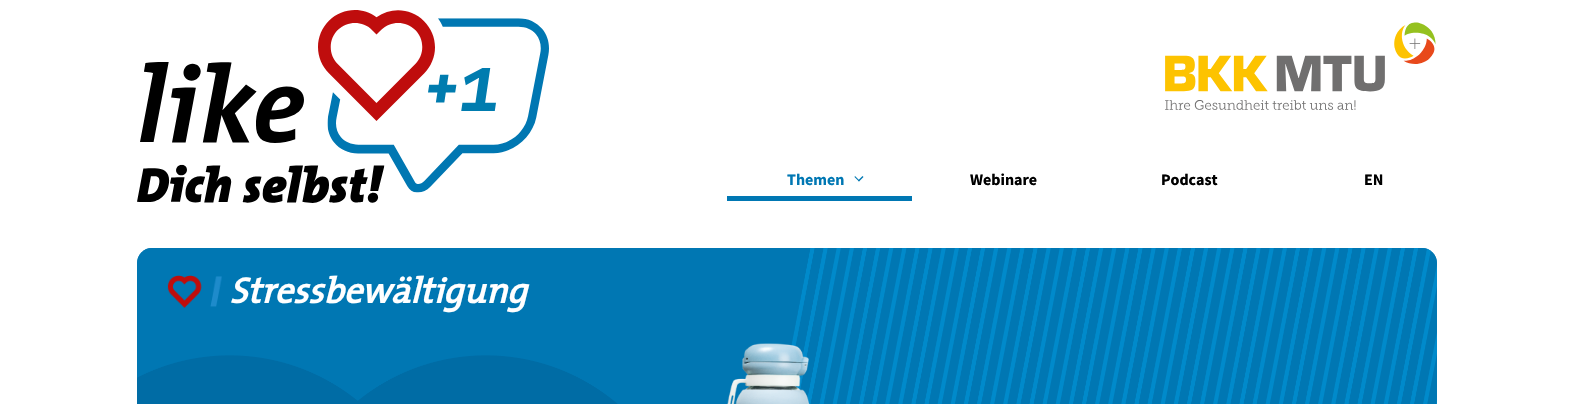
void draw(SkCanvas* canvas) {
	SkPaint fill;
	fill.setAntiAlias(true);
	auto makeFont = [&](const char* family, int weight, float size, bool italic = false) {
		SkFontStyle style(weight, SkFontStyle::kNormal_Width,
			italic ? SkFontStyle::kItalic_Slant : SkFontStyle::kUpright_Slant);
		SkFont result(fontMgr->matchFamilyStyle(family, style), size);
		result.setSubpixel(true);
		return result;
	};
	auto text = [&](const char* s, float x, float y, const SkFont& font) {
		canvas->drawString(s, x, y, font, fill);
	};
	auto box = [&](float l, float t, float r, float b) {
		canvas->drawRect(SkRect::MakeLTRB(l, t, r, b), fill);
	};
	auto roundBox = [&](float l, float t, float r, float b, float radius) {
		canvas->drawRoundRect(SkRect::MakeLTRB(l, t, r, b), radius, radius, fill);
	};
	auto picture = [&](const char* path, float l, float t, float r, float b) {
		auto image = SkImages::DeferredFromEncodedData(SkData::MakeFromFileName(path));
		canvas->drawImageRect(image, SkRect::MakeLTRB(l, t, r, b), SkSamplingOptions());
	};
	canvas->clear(0xFFFFFFFF);
	picture("image0.png", 137, 10, 549, 203);
	picture("image1.png", 1165, 22, 1436, 110);
	fill.setColor(0xFF0077B3);
	box(727, 196, 912, 201);
	canvas->drawPath(SkPathBuilder().moveTo(863.5f, 177).lineTo(859, 181.5f).lineTo(858, 180.5f).lineTo(862.5f, 176).close().detach(), fill);
	canvas->drawPath(SkPathBuilder().moveTo(859.5f, 180.5f).lineTo(859, 181.5f).lineTo(854.5f, 177).lineTo(855, 176).close().detach(), fill);
	roundBox(137, 248, 1437, 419, 15);
	picture("image2.png", 137, 248, 1437, 404);
	picture("image3.png", 167, 275, 222, 308);
	picture("image4.png", 727, 343, 810, 404);
	auto font1 = makeFont("Source Sans Pro", 700, 16);
	text("Themen", 787, 185, font1);
	fill.setColor(0xFF000000);
	text("Webinare", 970, 185, font1);
	text("Podcast", 1161, 185, font1);
	text("EN", 1364, 185, font1);
	auto font2 = makeFont("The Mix", 700, 36, true);
	fill.setColor(0xFFFFFFFF);
	text("Stressbewältigung", 229, 303, font2);
}
